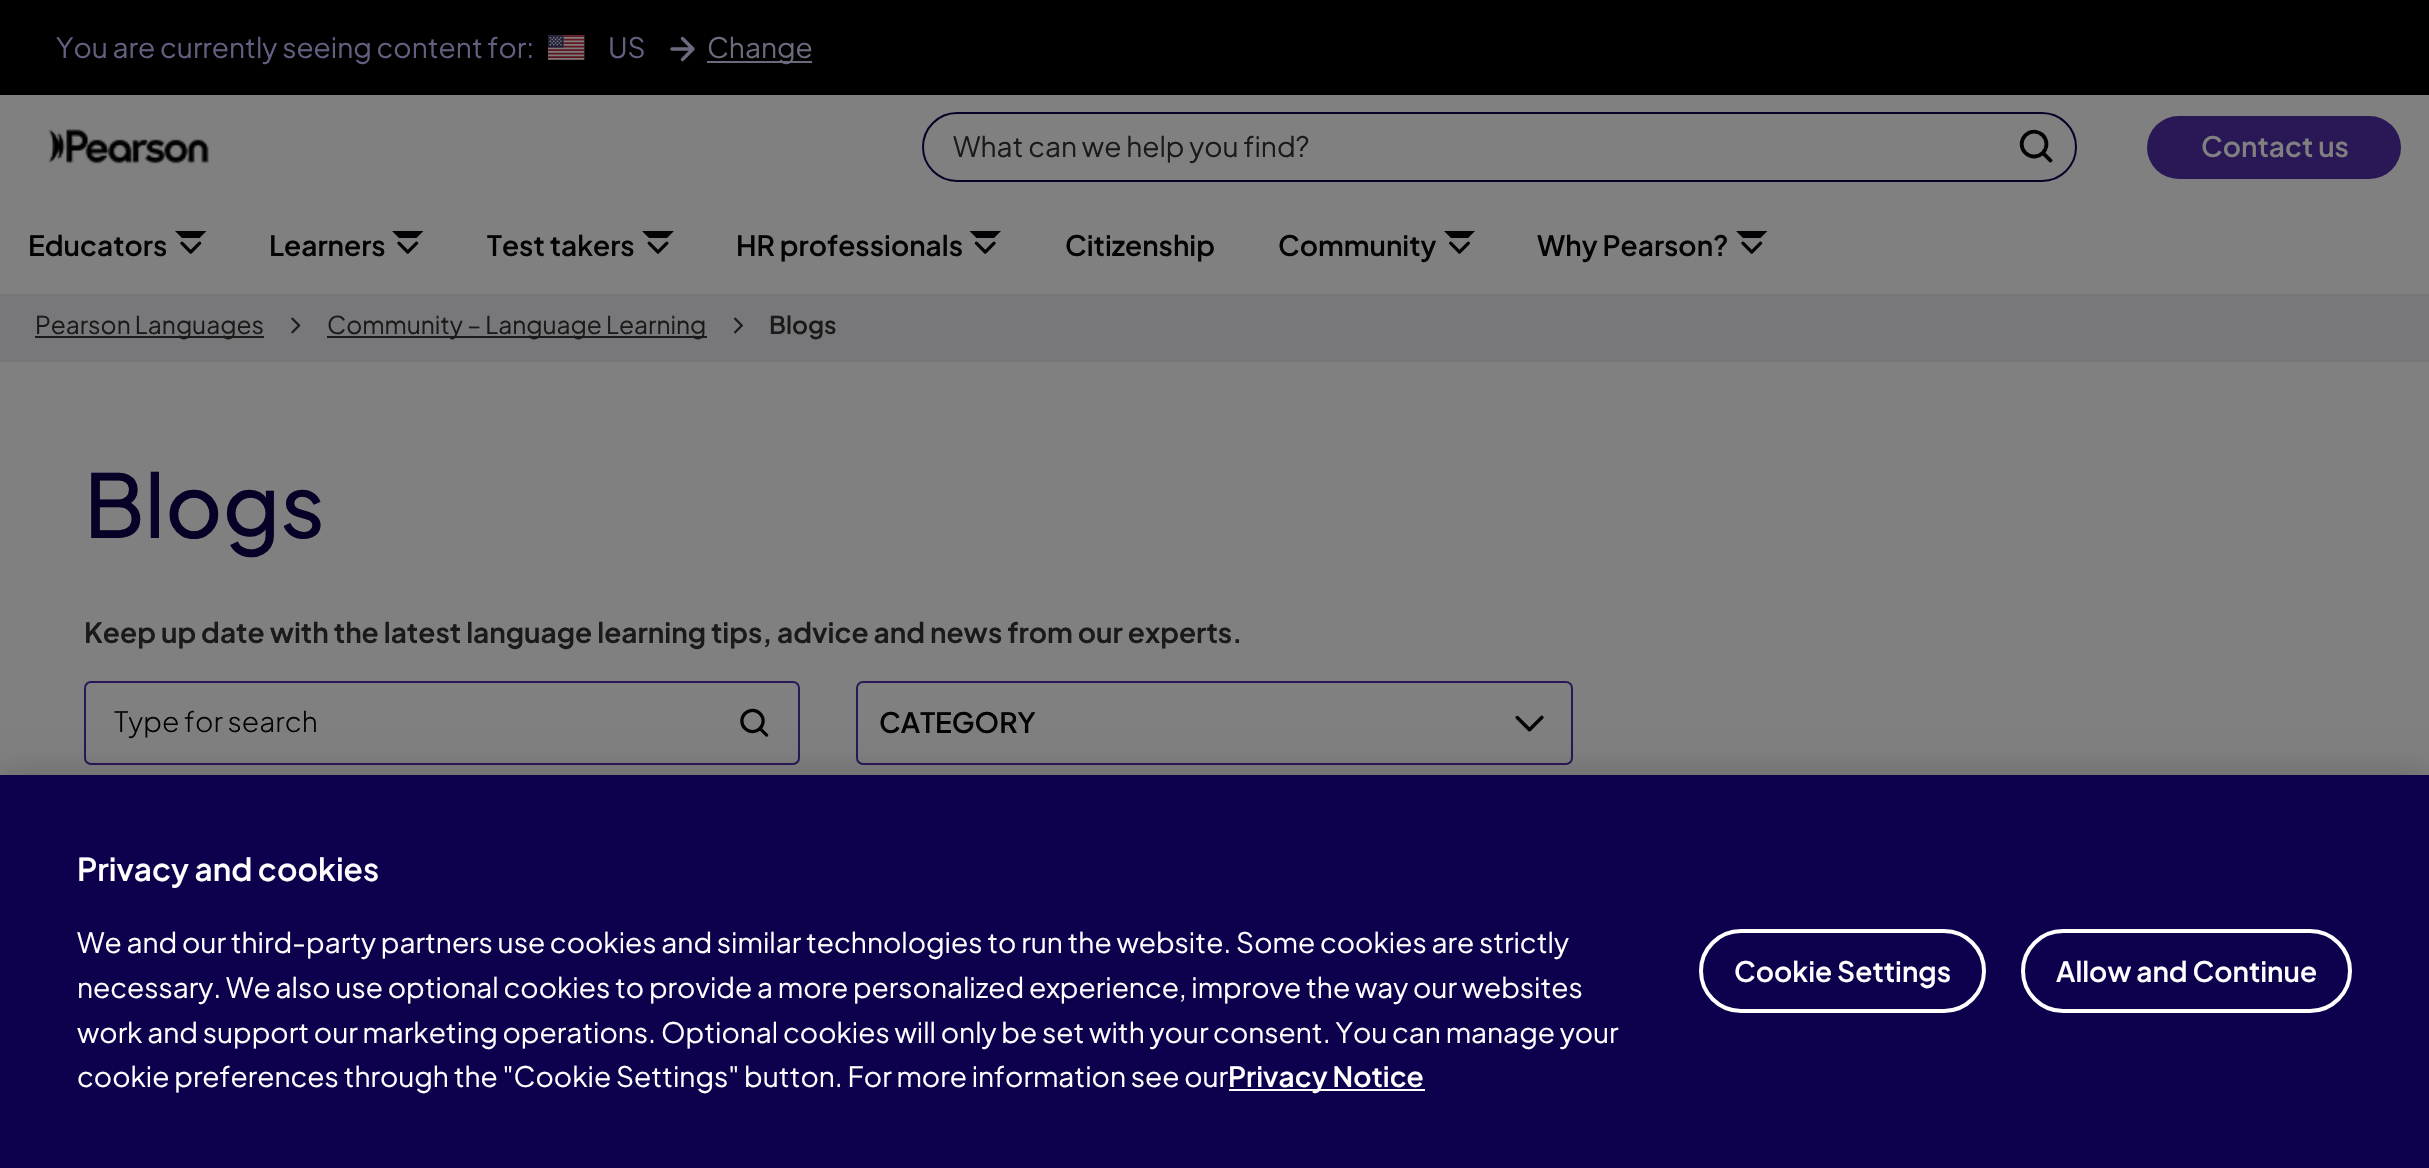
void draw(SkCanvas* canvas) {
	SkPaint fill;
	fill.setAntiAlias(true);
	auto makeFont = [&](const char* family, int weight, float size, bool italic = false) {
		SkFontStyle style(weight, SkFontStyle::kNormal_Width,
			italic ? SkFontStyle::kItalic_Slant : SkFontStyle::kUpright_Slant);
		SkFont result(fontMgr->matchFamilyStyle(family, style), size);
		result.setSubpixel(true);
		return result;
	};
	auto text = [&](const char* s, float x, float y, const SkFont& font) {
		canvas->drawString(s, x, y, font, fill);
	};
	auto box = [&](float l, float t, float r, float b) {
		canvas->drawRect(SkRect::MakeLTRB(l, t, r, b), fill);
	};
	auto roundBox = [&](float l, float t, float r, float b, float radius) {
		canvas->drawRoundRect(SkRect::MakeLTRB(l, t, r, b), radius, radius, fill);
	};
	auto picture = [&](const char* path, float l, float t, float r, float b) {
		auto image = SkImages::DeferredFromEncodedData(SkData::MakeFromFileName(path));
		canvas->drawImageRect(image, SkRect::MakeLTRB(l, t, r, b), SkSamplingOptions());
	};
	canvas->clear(0xFF78787B);
	fill.setColor(0xFF000000);
	box(0, 0, 2429, 95);
	picture("image0.png", 548, 35, 585, 60);
	picture("image1.png", 670, 36, 695, 62);
	fill.setColor(0xFF6B6B7E);
	box(707, 61, 812, 63);
	fill.setColor(0xFF808080);
	box(0, 95, 2429, 294);
	picture("image2.png", 48, 129, 209, 164);
	fill.setStyle(SkPaint::kStroke_Style);
	fill.setStrokeWidth(2);
	fill.setColor(0xFF070027);
	canvas->drawRoundRect(SkRect::MakeLTRB(923, 113, 2076, 181), 34, 34, fill);
	picture("image3.png", 2019, 129, 2053, 163);
	fill.setStyle(SkPaint::kFill_Style);
	fill.setColor(0xFF291756);
	roundBox(2147, 116, 2401, 179, 31.5f);
	picture("image4.png", 180, 241, 202, 254);
	fill.setColor(0xFF030305);
	canvas->drawPath(SkPathBuilder().moveTo(175, 231).lineTo(206.5f, 231).lineTo(199.5f, 238).lineTo(182, 238).close().detach(), fill);
	picture("image4.png", 397, 241, 419, 254);
	canvas->drawPath(SkPathBuilder().moveTo(392, 231).lineTo(423.5f, 231).lineTo(416.5f, 238).lineTo(399, 238).close().detach(), fill);
	picture("image5.png", 647, 241, 669, 254);
	canvas->drawPath(SkPathBuilder().moveTo(642, 231).lineTo(674, 231).lineTo(667, 238).lineTo(649, 238).close().detach(), fill);
	picture("image6.png", 974, 241, 996, 254);
	canvas->drawPath(SkPathBuilder().moveTo(969.5f, 231).lineTo(1001, 231).lineTo(994, 238).lineTo(976.5f, 238).close().detach(), fill);
	picture("image7.png", 1449, 241, 1470, 254);
	canvas->drawPath(SkPathBuilder().moveTo(1444, 231).lineTo(1475, 231).lineTo(1468, 238).lineTo(1451, 238).close().detach(), fill);
	picture("image4.png", 1741, 241, 1763, 254);
	canvas->drawPath(SkPathBuilder().moveTo(1736, 231).lineTo(1767.5f, 231).lineTo(1760.5f, 238).lineTo(1743, 238).close().detach(), fill);
	fill.setColor(0xFF1A1A1A);
	box(35, 336, 264, 338);
	picture("image8.png", 291, 317, 301, 334);
	box(327, 336, 707, 338);
	picture("image9.png", 734, 317, 743, 334);
	fill.setColor(0xFF808080);
	box(0, 362, 2429, 775);
	fill.setStyle(SkPaint::kStroke_Style);
	fill.setColor(0xFF291756);
	canvas->drawRoundRect(SkRect::MakeLTRB(85, 682, 799, 764), 6, 6, fill);
	picture("image10.png", 740, 708, 769, 737);
	canvas->drawRoundRect(SkRect::MakeLTRB(857, 682, 1572, 764), 6, 6, fill);
	picture("image11.png", 1515, 715, 1544, 732);
	fill.setStyle(SkPaint::kFill_Style);
	fill.setColor(0x33000000);
	fill.setMaskFilter(SkMaskFilter::MakeBlur(kNormal_SkBlurStyle, 16));
	canvas->drawRect(SkRect::MakeLTRB(0, 775, 2429, 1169), fill);
	fill.setMaskFilter(nullptr);
	fill.setColor(0xFF0D004D);
	box(0, 775, 2429, 1168);
	fill.setColor(0xFFFEFEFE);
	box(1229, 1089, 1425, 1091);
	fill.setStyle(SkPaint::kStroke_Style);
	fill.setStrokeWidth(4);
	fill.setColor(0xFFFFFFFF);
	canvas->drawRoundRect(SkRect::MakeLTRB(1701, 931, 1984, 1011), 40, 40, fill);
	canvas->drawRoundRect(SkRect::MakeLTRB(2023, 931, 2350, 1011), 40, 40, fill);
	auto font1 = makeFont("Plus Jakarta Sans", 400, 28);
	fill.setStyle(SkPaint::kFill_Style);
	fill.setColor(0xFF616080);
	text("You are currently seeing content for:", 56, 58, font1);
	text("US", 608, 58, font1);
	fill.setColor(0xFF6B6B7E);
	text("Change", 707, 58, font1);
	fill.setColor(0xFF1A1A1A);
	text("What can we help you find?", 953, 157, font1);
	auto font2 = makeFont("Plus Jakarta Sans", 600, 28);
	fill.setColor(0xFF808080);
	text("Contact us", 2201, 157, font2);
	fill.setColor(0xFF030305);
	text("Educators", 28, 256, font2);
	text("Learners", 269, 256, font2);
	text("Test takers", 487, 256, font2);
	text("HR professionals", 736, 256, font2);
	text("Citizenship", 1065, 256, font2);
	text("Community", 1278, 256, font2);
	text("Why Pearson?", 1537, 256, font2);
	auto font3 = makeFont("Plus Jakarta Sans", 400, 24.5f);
	fill.setColor(0xFF1A1A1A);
	text("Pearson Languages", 35, 334, font3);
	text("Community – Language Learning", 327, 334, font3);
	auto font4 = makeFont("Plus Jakarta Sans", 600, 24.5f);
	text("Blogs", 769, 334, font4);
	auto font5 = makeFont("Plus Jakarta Sans", 500, 87.5f);
	fill.setColor(0xFF070027);
	text("Blogs", 84, 538, font5);
	auto font6 = makeFont("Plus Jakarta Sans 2", 600, 28);
	fill.setColor(0xFF1A1A1A);
	text("Keep up date with the latest language learning tips, advice and news from our experts.", 84, 643, font6);
	auto font7 = makeFont("Plus Jakarta Sans", 300, 28);
	fill.setColor(0xFF030305);
	text("Type for search", 114, 732, font7);
	text("CATEGORY", 879, 733, font2);
	auto font8 = makeFont("Plus Jakarta Sans", 600, 31.5f);
	fill.setColor(0xFFFFFFFF);
	text("Privacy and cookies", 77, 881, font8);
	text("We and our third-party partners use cookies and similar technologies to run the website. Some cookies are strictly", 77, 953, font1);
	text("necessary. We also use optional cookies to provide a more personalized experience, improve the way our websites", 77, 998, font1);
	text("work and support our marketing operations. Optional cookies will only be set with your consent. You can manage your", 77, 1043, font1);
	text("cookie preferences through the \"Cookie Settings\" button. For more information see our", 77, 1087, font1);
	text("Privacy Notice", 1228, 1087, font2);
	text("Cookie Settings", 1734, 982, font2);
	text("Allow and Continue", 2056, 982, font2);
}
